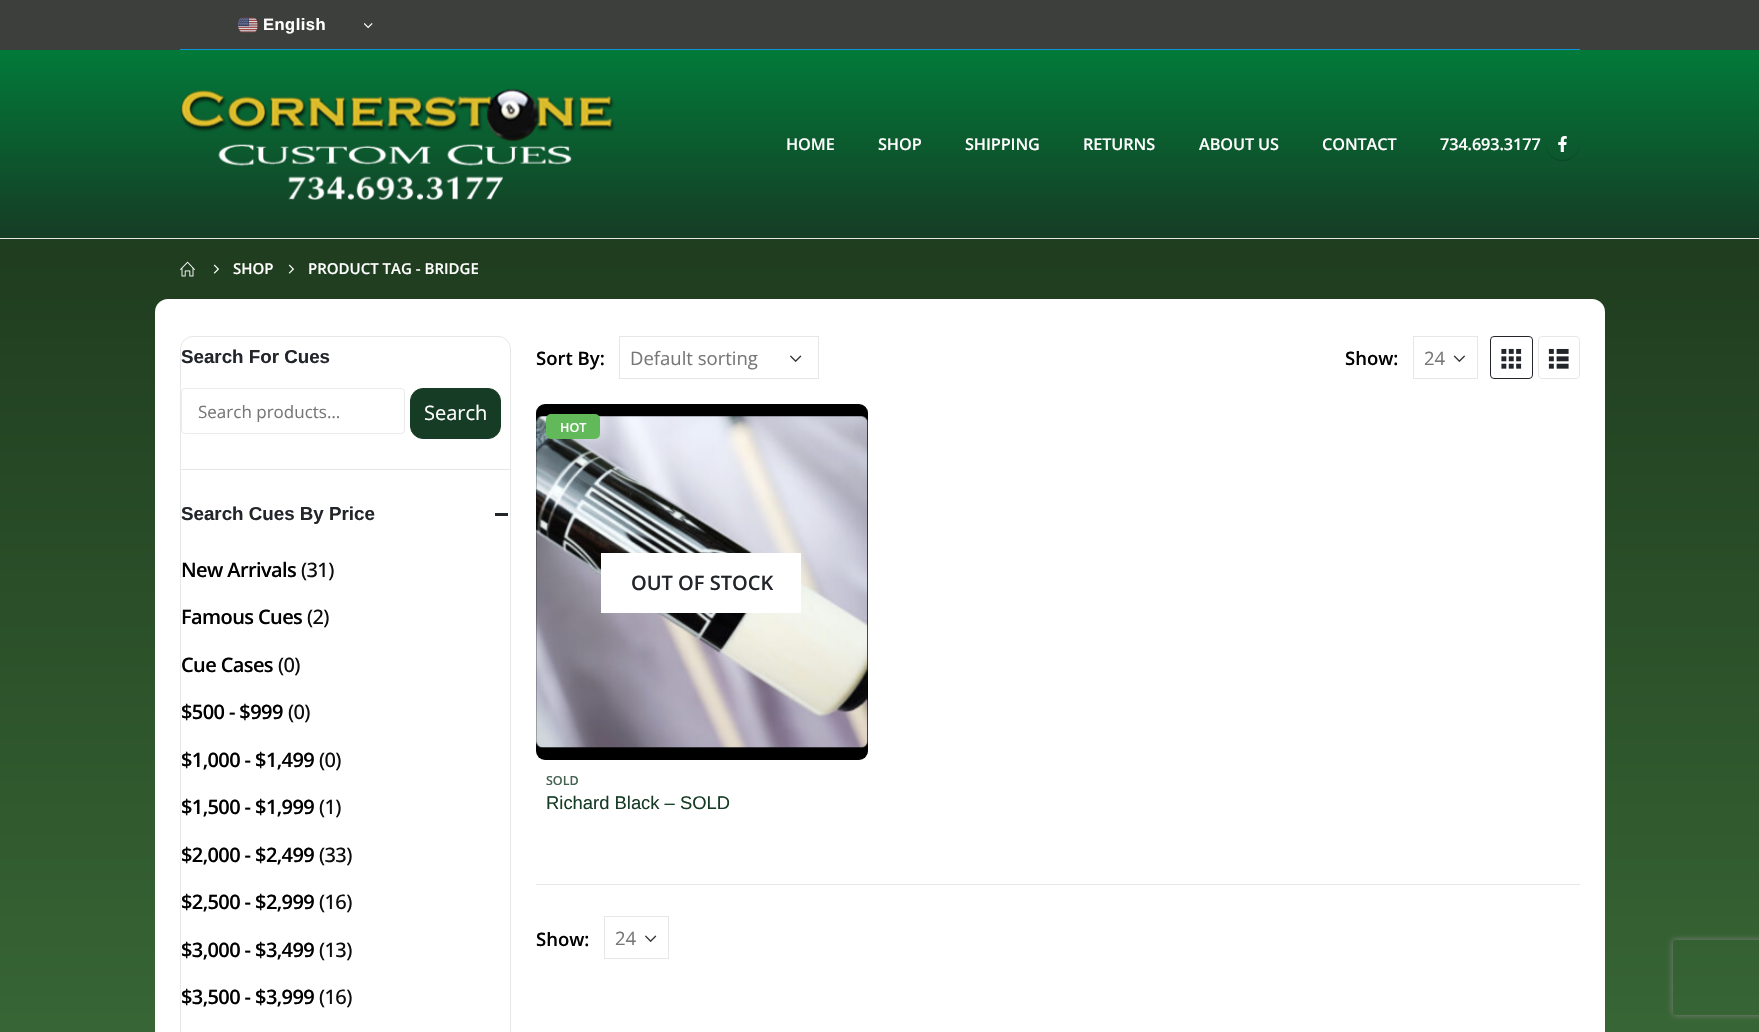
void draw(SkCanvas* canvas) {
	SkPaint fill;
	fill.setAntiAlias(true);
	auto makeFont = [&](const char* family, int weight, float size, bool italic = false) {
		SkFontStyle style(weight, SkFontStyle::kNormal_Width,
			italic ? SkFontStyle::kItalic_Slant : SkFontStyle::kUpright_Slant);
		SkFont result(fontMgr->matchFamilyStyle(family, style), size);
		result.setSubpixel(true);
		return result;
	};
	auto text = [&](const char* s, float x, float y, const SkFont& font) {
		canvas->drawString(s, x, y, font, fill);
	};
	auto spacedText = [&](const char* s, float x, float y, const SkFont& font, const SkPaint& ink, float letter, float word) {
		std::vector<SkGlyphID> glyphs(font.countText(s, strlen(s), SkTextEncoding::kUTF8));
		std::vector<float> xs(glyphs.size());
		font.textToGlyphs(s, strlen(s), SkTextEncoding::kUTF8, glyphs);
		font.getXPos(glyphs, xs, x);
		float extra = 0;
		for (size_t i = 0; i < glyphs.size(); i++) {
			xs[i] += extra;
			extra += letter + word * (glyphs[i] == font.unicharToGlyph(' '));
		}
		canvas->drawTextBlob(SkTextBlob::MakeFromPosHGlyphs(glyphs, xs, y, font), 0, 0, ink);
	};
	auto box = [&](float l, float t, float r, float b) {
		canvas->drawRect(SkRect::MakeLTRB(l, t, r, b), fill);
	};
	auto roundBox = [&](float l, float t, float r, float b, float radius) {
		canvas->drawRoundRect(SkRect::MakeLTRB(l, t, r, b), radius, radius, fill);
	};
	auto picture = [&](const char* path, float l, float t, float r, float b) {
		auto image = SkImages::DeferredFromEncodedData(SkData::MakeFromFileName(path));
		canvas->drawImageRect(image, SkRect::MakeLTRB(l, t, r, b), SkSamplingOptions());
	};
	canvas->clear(0xFFFFFFFF);
	{
		const SkColor colors[] = {0xFF183018, 0xFF54964F};
		const float stops[] = {0, 1};
		const SkPoint ends[] = {{880, 0}, {880, 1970}};
		fill.setShader(SkGradientShader::MakeLinear(ends, colors, stops, 2, SkTileMode::kClamp));
		fill.setAlpha(255);
	}
	box(0, 239, 1759, 1032);
	fill.setShader(nullptr);
	fill.setColor(0xFFE7E7E7);
	box(0, 238, 1759, 239);
	fill.setColor(0xFF3D3F3D);
	box(0, 0, 1759, 50);
	picture("image0.png", 238, 17, 258, 33);
	picture("image1.png", 364, 23, 373, 29);
	fill.setColor(0xFF0E95D8);
	box(180, 49, 1580, 50);
	{
		const SkColor colors[] = {0xFF017A39, 0xFF163C25};
		const float stops[] = {0, 1};
		const SkPoint ends[] = {{880, 50}, {880, 238}};
		fill.setShader(SkGradientShader::MakeLinear(ends, colors, stops, 2, SkTileMode::kClamp));
		fill.setAlpha(255);
	}
	box(0, 50, 1759, 238);
	picture("image2.png", 180, 88, 615, 200);
	canvas->save();
	canvas->clipPath(SkPathBuilder(SkPathFillType::kEvenOdd).moveTo(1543, 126).lineTo(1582, 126).lineTo(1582, 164).lineTo(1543, 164).close().moveTo(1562, 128).lineTo(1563, 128).cubicTo(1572, 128, 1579, 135, 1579, 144).cubicTo(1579, 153, 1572, 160, 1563, 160).lineTo(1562, 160).cubicTo(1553, 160, 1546, 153, 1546, 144).cubicTo(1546, 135, 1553, 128, 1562, 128).close().detach(), true);
	fill.setShader(nullptr);
	fill.setColor(0x33000000);
	fill.setMaskFilter(SkMaskFilter::MakeBlur(kNormal_SkBlurStyle, 0.5f));
	canvas->drawRoundRect(SkRect::MakeLTRB(1546, 129, 1579, 161), 16, 16, fill);
	fill.setMaskFilter(nullptr);
	canvas->restore();
	picture("image3.png", 1558, 136, 1567, 152);
	picture("image4.png", 180, 261, 195, 277);
	picture("image5.png", 213, 264, 219, 274);
	picture("image5.png", 288, 264, 294, 274);
	fill.setColor(0xFFFFFFFF);
	roundBox(155, 299, 1605, 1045, 13);
	fill.setStyle(SkPaint::kStroke_Style);
	fill.setStrokeWidth(1);
	fill.setColor(0xFFE7E7E7);
	canvas->drawRoundRect(SkRect::MakeLTRB(180.5f, 336.5f, 510.5f, 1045.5f), 12.5f, 12.5f, fill);
	fill.setStyle(SkPaint::kFill_Style);
	box(181, 469, 510, 470);
	fill.setStyle(SkPaint::kStroke_Style);
	fill.setColor(0xFFEBEBEB);
	canvas->drawRoundRect(SkRect::MakeLTRB(181.5f, 388.5f, 404.5f, 433.5f), 3.5f, 3.5f, fill);
	fill.setStyle(SkPaint::kFill_Style);
	fill.setColor(0xFF163C25);
	canvas->drawRoundRect(SkRect::MakeLTRB(410.5f, 388.5f, 500.5f, 438.5f), 12.5f, 12.5f, fill);
	fill.setStyle(SkPaint::kStroke_Style);
	canvas->drawRoundRect(SkRect::MakeLTRB(410.5f, 388.5f, 500.5f, 438.5f), 12.5f, 12.5f, fill);
	fill.setStyle(SkPaint::kFill_Style);
	fill.setColor(0xFF222529);
	box(495, 513, 508, 516);
	picture("image6.png", 790, 355, 802, 363);
	fill.setStyle(SkPaint::kStroke_Style);
	fill.setColor(0xFFE7E7E7);
	canvas->drawRect(SkRect::MakeLTRB(619.5f, 336.5f, 818.5f, 378.5f), fill);
	picture("image7.png", 1453, 355, 1465, 363);
	canvas->drawRect(SkRect::MakeLTRB(1413.5f, 336.5f, 1477.5f, 378.5f), fill);
	fill.setColor(0xFF222529);
	canvas->drawRoundRect(SkRect::MakeLTRB(1490.5f, 336.5f, 1532.5f, 378.5f), 3.5f, 3.5f, fill);
	picture("image8.png", 1501, 348, 1522, 369);
	fill.setColor(0xFFE7E7E7);
	canvas->drawRoundRect(SkRect::MakeLTRB(1538.5f, 336.5f, 1579.5f, 378.5f), 3.5f, 3.5f, fill);
	picture("image9.png", 1548, 348, 1569, 369);
	fill.setStyle(SkPaint::kFill_Style);
	fill.setColor(0xFF000000);
	roundBox(536, 404, 868, 760, 9);
	picture("image10.png", 536, 416, 868, 748);
	fill.setColor(0xFF62B959);
	roundBox(546, 414, 600, 439, 5);
	fill.setColor(0xFFFFFFFF);
	box(601, 553, 801, 613);
	fill.setColor(0xFFE7E7E7);
	box(536, 884, 1580, 885);
	picture("image6.png", 645, 935, 657, 943);
	fill.setStyle(SkPaint::kStroke_Style);
	canvas->drawRect(SkRect::MakeLTRB(604.5f, 916.5f, 668.5f, 958.5f), fill);
	canvas->save();
	canvas->clipPath(SkPathBuilder(SkPathFillType::kEvenOdd).moveTo(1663, 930).lineTo(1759, 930).lineTo(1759, 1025).lineTo(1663, 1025).close().moveTo(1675.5f, 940).lineTo(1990.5f, 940).cubicTo(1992, 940, 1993, 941, 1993, 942.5f).lineTo(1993, 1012.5f).cubicTo(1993, 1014, 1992, 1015, 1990.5f, 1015).lineTo(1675.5f, 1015).cubicTo(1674, 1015, 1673, 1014, 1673, 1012.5f).lineTo(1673, 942.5f).cubicTo(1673, 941, 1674, 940, 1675.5f, 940).close().detach(), true);
	fill.setStyle(SkPaint::kFill_Style);
	fill.setColor(0xFF808080);
	fill.setMaskFilter(SkMaskFilter::MakeBlur(kNormal_SkBlurStyle, 3));
	canvas->drawRoundRect(SkRect::MakeLTRB(1673, 940, 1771, 1015), 2.5f, 2.5f, fill);
	fill.setMaskFilter(nullptr);
	canvas->restore();
	auto font1 = makeFont("Liberation Sans", 700, 16.5f);
	fill.setColor(0xFFFFFFFF);
	spacedText("English", 263, 30, font1, fill, 0.5f, 0);
	auto font2 = makeFont("Open Sans", 600, 16.25f);
	spacedText("HOME", 786, 150, font2, fill, -0.1f, 0);
	spacedText("SHOP", 878, 150, font2, fill, -0.1f, 0);
	spacedText("SHIPPING", 965, 150, font2, fill, -0.1f, 0);
	spacedText("RETURNS", 1083, 150, font2, fill, -0.1f, 0);
	spacedText("ABOUT US", 1199, 150, font2, fill, -0.1f, 0);
	spacedText("CONTACT", 1322, 150, font2, fill, -0.1f, 0);
	spacedText("734.693.3177", 1440, 150, font2, fill, -0.1f, 0);
	auto font3 = makeFont("Open Sans", 600, 15);
	text("SHOP", 233, 274, font3);
	text("PRODUCT TAG - BRIDGE", 308, 274, font3);
	auto font4 = makeFont("Liberation Sans", 700, 18.75f);
	fill.setColor(0xFF222529);
	text("Search For Cues", 181, 363, font4);
	auto font5 = makeFont("Open Sans", 400, 17);
	fill.setColor(0xFF777777);
	text("Search products…", 198, 418, font5);
	auto font6 = makeFont("Open Sans", 400, 20);
	fill.setColor(0xFFFFFFFF);
	text("Search", 424, 420, font6);
	fill.setColor(0xFF222529);
	text("Search Cues By Price", 181, 520, font4);
	auto font7 = makeFont("Open Sans", 600, 20);
	fill.setColor(0xFF000000);
	spacedText("New Arrivals", 181, 577, font7, fill, -0.6f, 0);
	auto font8 = makeFont("Open Sans", 500, 20);
	fill.setColor(0xFF0D0D0D);
	spacedText("(31)", 301, 577, font8, fill, -0.6f, 0);
	fill.setColor(0xFF000000);
	spacedText("Famous Cues", 181, 624, font7, fill, -0.6f, 0);
	fill.setColor(0xFF0D0D0D);
	spacedText("(2)", 307, 624, font8, fill, -0.6f, 0);
	fill.setColor(0xFF000000);
	spacedText("Cue Cases", 181, 672, font7, fill, -0.6f, 0);
	fill.setColor(0xFF0D0D0D);
	spacedText("(0)", 278, 672, font8, fill, -0.6f, 0);
	fill.setColor(0xFF000000);
	spacedText("$500 - $999", 181, 719, font7, fill, -0.6f, 0);
	fill.setColor(0xFF0D0D0D);
	spacedText("(0)", 288, 719, font8, fill, -0.6f, 0);
	fill.setColor(0xFF000000);
	spacedText("$1,000 - $1,499", 181, 767, font7, fill, -0.6f, 0);
	fill.setColor(0xFF0D0D0D);
	spacedText("(0)", 319, 767, font8, fill, -0.6f, 0);
	fill.setColor(0xFF000000);
	spacedText("$1,500 - $1,999", 181, 814, font7, fill, -0.6f, 0);
	fill.setColor(0xFF0D0D0D);
	spacedText("(1)", 319, 814, font8, fill, -0.6f, 0);
	fill.setColor(0xFF000000);
	spacedText("$2,000 - $2,499", 181, 862, font7, fill, -0.6f, 0);
	fill.setColor(0xFF0D0D0D);
	spacedText("(33)", 319, 862, font8, fill, -0.6f, 0);
	fill.setColor(0xFF000000);
	spacedText("$2,500 - $2,999", 181, 909, font7, fill, -0.6f, 0);
	fill.setColor(0xFF0D0D0D);
	spacedText("(16)", 319, 909, font8, fill, -0.6f, 0);
	fill.setColor(0xFF000000);
	spacedText("$3,000 - $3,499", 181, 957, font7, fill, -0.6f, 0);
	fill.setColor(0xFF0D0D0D);
	spacedText("(13)", 319, 957, font8, fill, -0.6f, 0);
	fill.setColor(0xFF000000);
	spacedText("$3,500 - $3,999", 181, 1004, font7, fill, -0.6f, 0);
	fill.setColor(0xFF0D0D0D);
	spacedText("(16)", 319, 1004, font8, fill, -0.6f, 0);
	auto font9 = makeFont("Open Sans", 600, 18.5f);
	fill.setColor(0xFF000000);
	text("Sort By:", 536, 365, font9);
	auto font10 = makeFont("Open Sans", 400, 18.5f);
	fill.setColor(0xFF777777);
	text("Default sorting", 630, 365, font10);
	fill.setColor(0xFF000000);
	text("Show:", 1345, 365, font9);
	fill.setColor(0xFF777777);
	text("24", 1424, 365, font10);
	auto font11 = makeFont("Open Sans", 600, 12.5f);
	fill.setColor(0xFFFFFFFF);
	text("HOT", 560, 432, font11);
	fill.setColor(0xFF222529);
	text("OUT OF STOCK", 631, 590, font7);
	fill.setColor(0xFF456351);
	text("SOLD", 546, 785, font11);
	auto font12 = makeFont("Liberation Sans", 400, 18.4f);
	fill.setColor(0xFF163C25);
	text("Richard Black – SOLD", 546, 809, font12);
	fill.setColor(0xFF000000);
	text("Show:", 536, 946, font9);
	fill.setColor(0xFF777777);
	text("24", 615, 945, font10);
}
